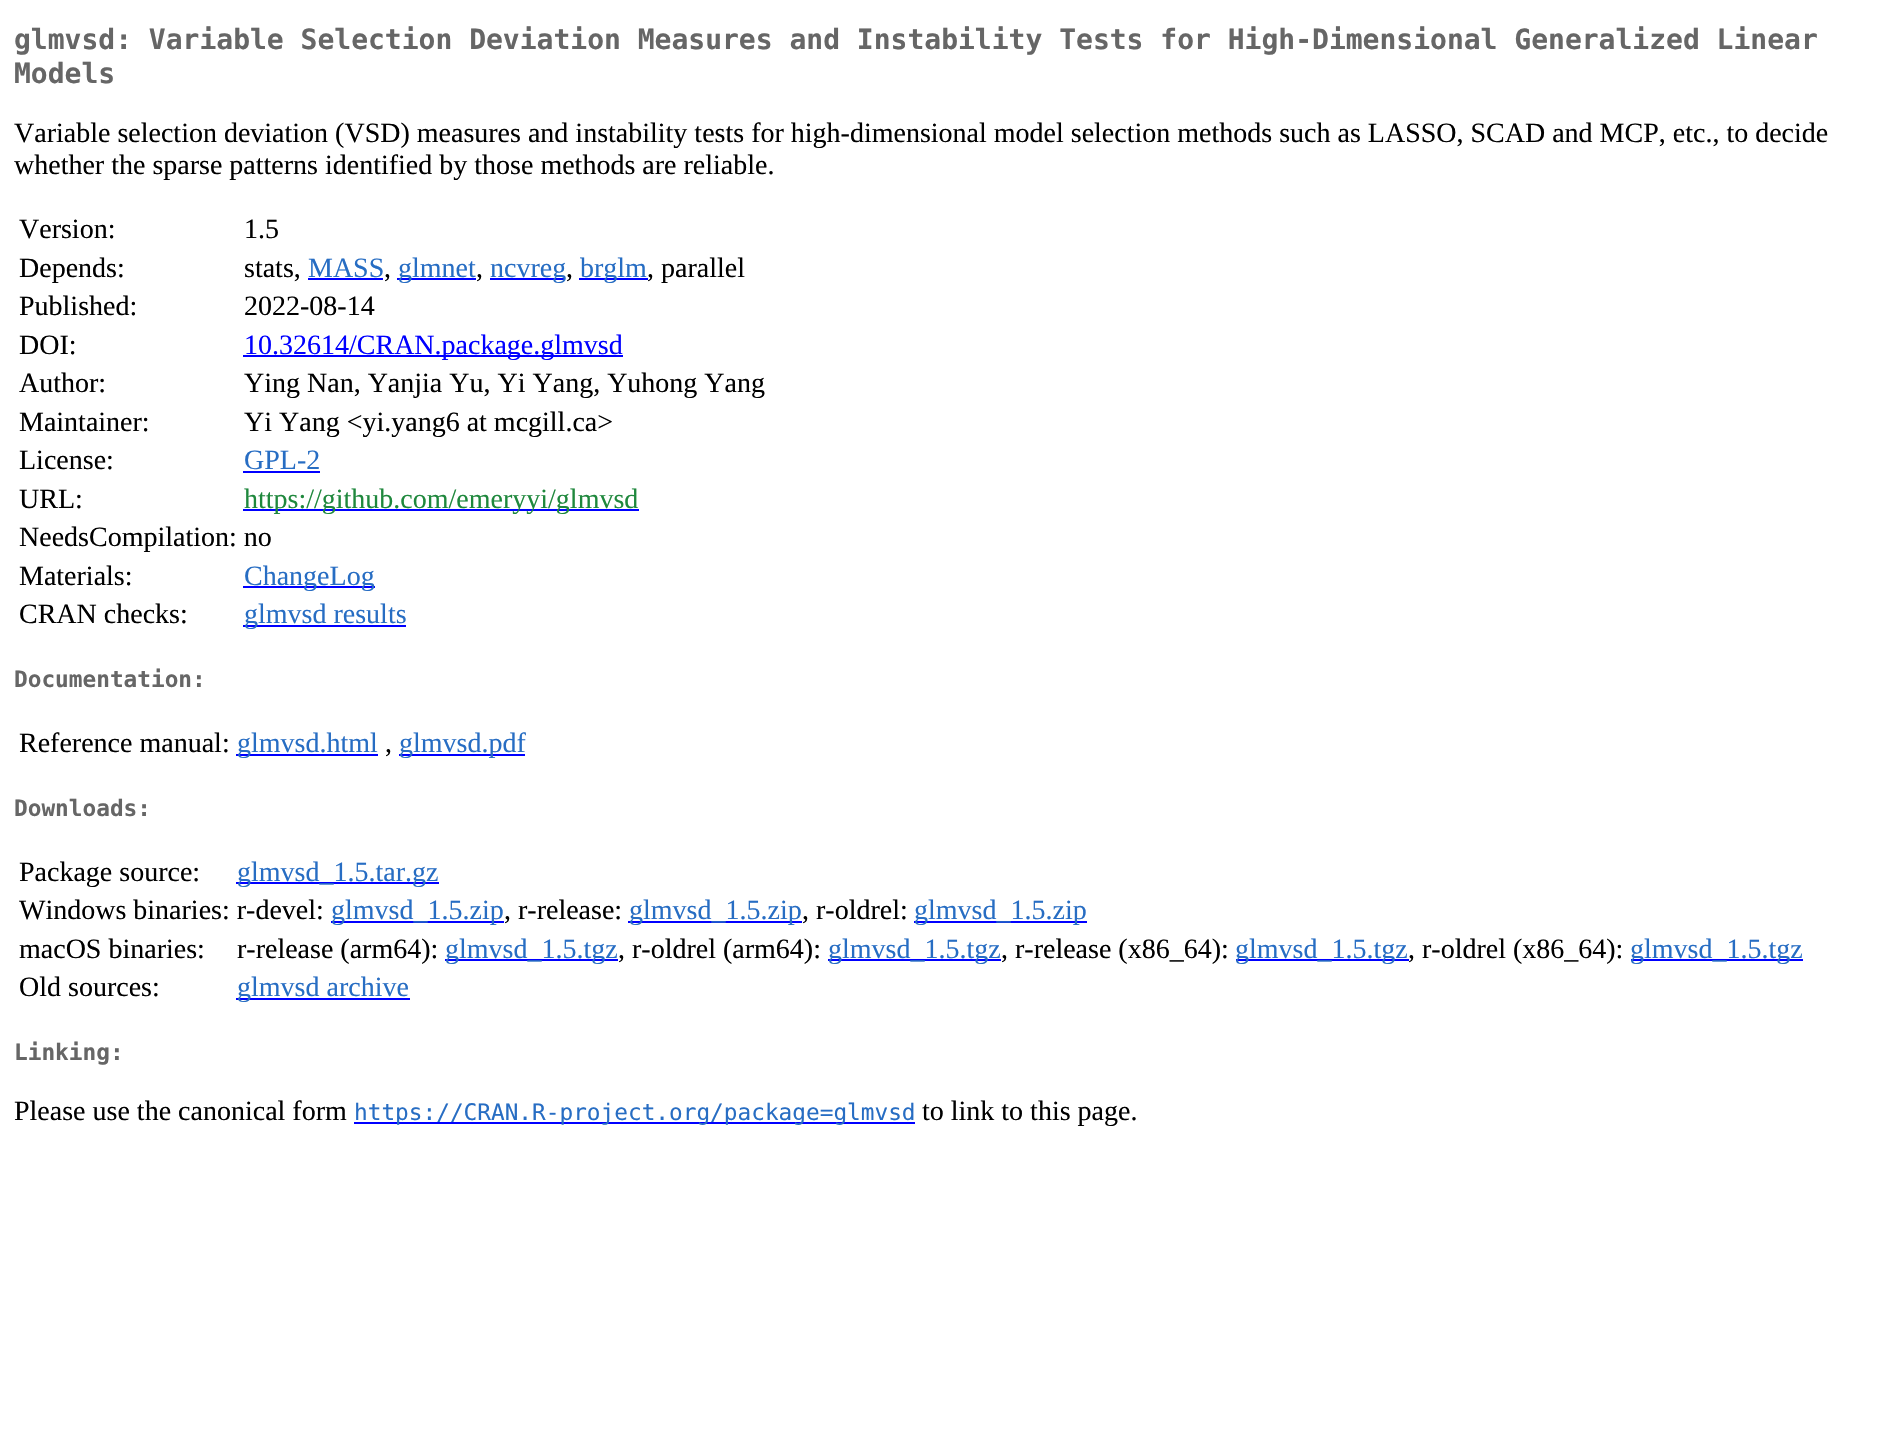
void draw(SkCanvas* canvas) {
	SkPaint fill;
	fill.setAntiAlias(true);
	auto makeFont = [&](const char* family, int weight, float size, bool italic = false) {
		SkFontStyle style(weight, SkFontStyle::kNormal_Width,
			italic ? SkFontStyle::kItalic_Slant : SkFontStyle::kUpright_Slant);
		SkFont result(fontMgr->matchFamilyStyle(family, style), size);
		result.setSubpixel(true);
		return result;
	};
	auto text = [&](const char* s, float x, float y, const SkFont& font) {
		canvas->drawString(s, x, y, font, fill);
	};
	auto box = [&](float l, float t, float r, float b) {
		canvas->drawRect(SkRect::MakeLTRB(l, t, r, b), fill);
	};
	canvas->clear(0xFFFFFFFF);
	fill.setColor(0xFF0000FF);
	box(308, 278, 383, 280);
	box(397, 278, 476, 280);
	box(490, 278, 565, 280);
	box(579, 278, 648, 280);
	box(243, 355, 623, 357);
	box(243, 471, 320, 473);
	box(243, 509, 639, 511);
	box(243, 586, 375, 588);
	box(243, 625, 406, 627);
	box(236, 754, 378, 756);
	box(399, 754, 525, 756);
	box(236, 882, 439, 884);
	box(331, 921, 504, 923);
	box(628, 921, 802, 923);
	box(914, 921, 1087, 923);
	box(445, 959, 618, 961);
	box(828, 959, 1001, 961);
	box(1236, 959, 1409, 961);
	box(1631, 959, 1803, 961);
	box(236, 998, 410, 1000);
	box(354, 1122, 915, 1124);
	auto font1 = makeFont("DejaVu Sans Mono", 700, 28);
	fill.setColor(0xFF666666);
	text("glmvsd: Variable Selection Deviation Measures and Instability Tests for High-Dimensional Generalized Linear", 14, 49, font1);
	text("Models", 14, 83, font1);
	auto font2 = makeFont("Liberation Serif", 400, 28);
	fill.setColor(0xFF000000);
	text("Variable selection deviation (VSD) measures and instability tests for high-dimensional model selection methods such as LASSO, SCAD and MCP, etc., to decide", 14, 142, font2);
	text("whether the sparse patterns identified by those methods are reliable.", 14, 174, font2);
	text("Version:", 19, 238, font2);
	text("1.5", 244, 238, font2);
	text("Depends:", 19, 277, font2);
	text("stats,", 244, 277, font2);
	fill.setColor(0xFF276DC3);
	text("MASS", 308, 277, font2);
	fill.setColor(0xFF000000);
	text(",", 384, 277, font2);
	fill.setColor(0xFF276DC3);
	text("glmnet", 398, 277, font2);
	fill.setColor(0xFF000000);
	text(",", 476, 277, font2);
	fill.setColor(0xFF276DC3);
	text("ncvreg", 490, 277, font2);
	fill.setColor(0xFF000000);
	text(",", 566, 277, font2);
	fill.setColor(0xFF276DC3);
	text("brglm", 580, 277, font2);
	fill.setColor(0xFF000000);
	text(", parallel", 647, 277, font2);
	text("Published:", 19, 315, font2);
	text("2022-08-14", 244, 315, font2);
	text("DOI:", 19, 354, font2);
	fill.setColor(0xFF0000FF);
	text("10.32614/CRAN.package.glmvsd", 244, 354, font2);
	fill.setColor(0xFF000000);
	text("Author:", 19, 392, font2);
	text("Ying Nan, Yanjia Yu, Yi Yang, Yuhong Yang", 244, 392, font2);
	text("Maintainer:", 19, 431, font2);
	text("Yi Yang <yi.yang6 at mcgill.ca>", 244, 431, font2);
	text("License:", 19, 469, font2);
	fill.setColor(0xFF276DC3);
	text("GPL-2", 244, 469, font2);
	fill.setColor(0xFF000000);
	text("URL:", 19, 508, font2);
	fill.setColor(0xFF1F883D);
	text("https://github.com/emeryyi/glmvsd", 244, 508, font2);
	fill.setColor(0xFF000000);
	text("NeedsCompilation: no", 19, 546, font2);
	text("Materials:", 19, 585, font2);
	fill.setColor(0xFF276DC3);
	text("ChangeLog", 244, 585, font2);
	fill.setColor(0xFF000000);
	text("CRAN checks:", 19, 623, font2);
	fill.setColor(0xFF276DC3);
	text("glmvsd results", 244, 623, font2);
	auto font3 = makeFont("DejaVu Sans Mono", 700, 22.75f);
	fill.setColor(0xFF666666);
	text("Documentation:", 14, 687, font3);
	fill.setColor(0xFF000000);
	text("Reference manual:", 19, 752, font2);
	fill.setColor(0xFF276DC3);
	text("glmvsd.html", 237, 752, font2);
	fill.setColor(0xFF000000);
	text(",", 385, 752, font2);
	fill.setColor(0xFF276DC3);
	text("glmvsd.pdf", 399, 752, font2);
	fill.setColor(0xFF666666);
	text("Downloads:", 14, 816, font3);
	fill.setColor(0xFF000000);
	text("Package source:", 19, 881, font2);
	fill.setColor(0xFF276DC3);
	text("glmvsd_1.5.tar.gz", 237, 881, font2);
	fill.setColor(0xFF000000);
	text("Windows binaries: r-devel:", 19, 919, font2);
	fill.setColor(0xFF276DC3);
	text("glmvsd_1.5.zip", 331, 919, font2);
	fill.setColor(0xFF000000);
	text(", r-release:", 504, 919, font2);
	fill.setColor(0xFF276DC3);
	text("glmvsd_1.5.zip", 629, 919, font2);
	fill.setColor(0xFF000000);
	text(", r-oldrel:", 802, 919, font2);
	fill.setColor(0xFF276DC3);
	text("glmvsd_1.5.zip", 914, 919, font2);
	fill.setColor(0xFF000000);
	text("macOS binaries:", 19, 958, font2);
	text("r-release (arm64):", 237, 958, font2);
	fill.setColor(0xFF276DC3);
	text("glmvsd_1.5.tgz", 445, 958, font2);
	fill.setColor(0xFF000000);
	text(", r-oldrel (arm64):", 618, 958, font2);
	fill.setColor(0xFF276DC3);
	text("glmvsd_1.5.tgz", 828, 958, font2);
	fill.setColor(0xFF000000);
	text(", r-release (x86_64):", 1001, 958, font2);
	fill.setColor(0xFF276DC3);
	text("glmvsd_1.5.tgz", 1235, 958, font2);
	fill.setColor(0xFF000000);
	text(", r-oldrel (x86_64):", 1408, 958, font2);
	fill.setColor(0xFF276DC3);
	text("glmvsd_1.5.tgz", 1630, 958, font2);
	fill.setColor(0xFF000000);
	text("Old sources:", 19, 996, font2);
	fill.setColor(0xFF276DC3);
	text("glmvsd archive", 237, 996, font2);
	fill.setColor(0xFF666666);
	text("Linking:", 14, 1060, font3);
	fill.setColor(0xFF000000);
	text("Please use the canonical form", 14, 1120, font2);
	auto font4 = makeFont("DejaVu Sans Mono", 400, 22.75f);
	fill.setColor(0xFF276DC3);
	text("https://CRAN.R-project.org/package=glmvsd", 354, 1120, font4);
	fill.setColor(0xFF000000);
	text("to link to this page.", 922, 1120, font2);
}
